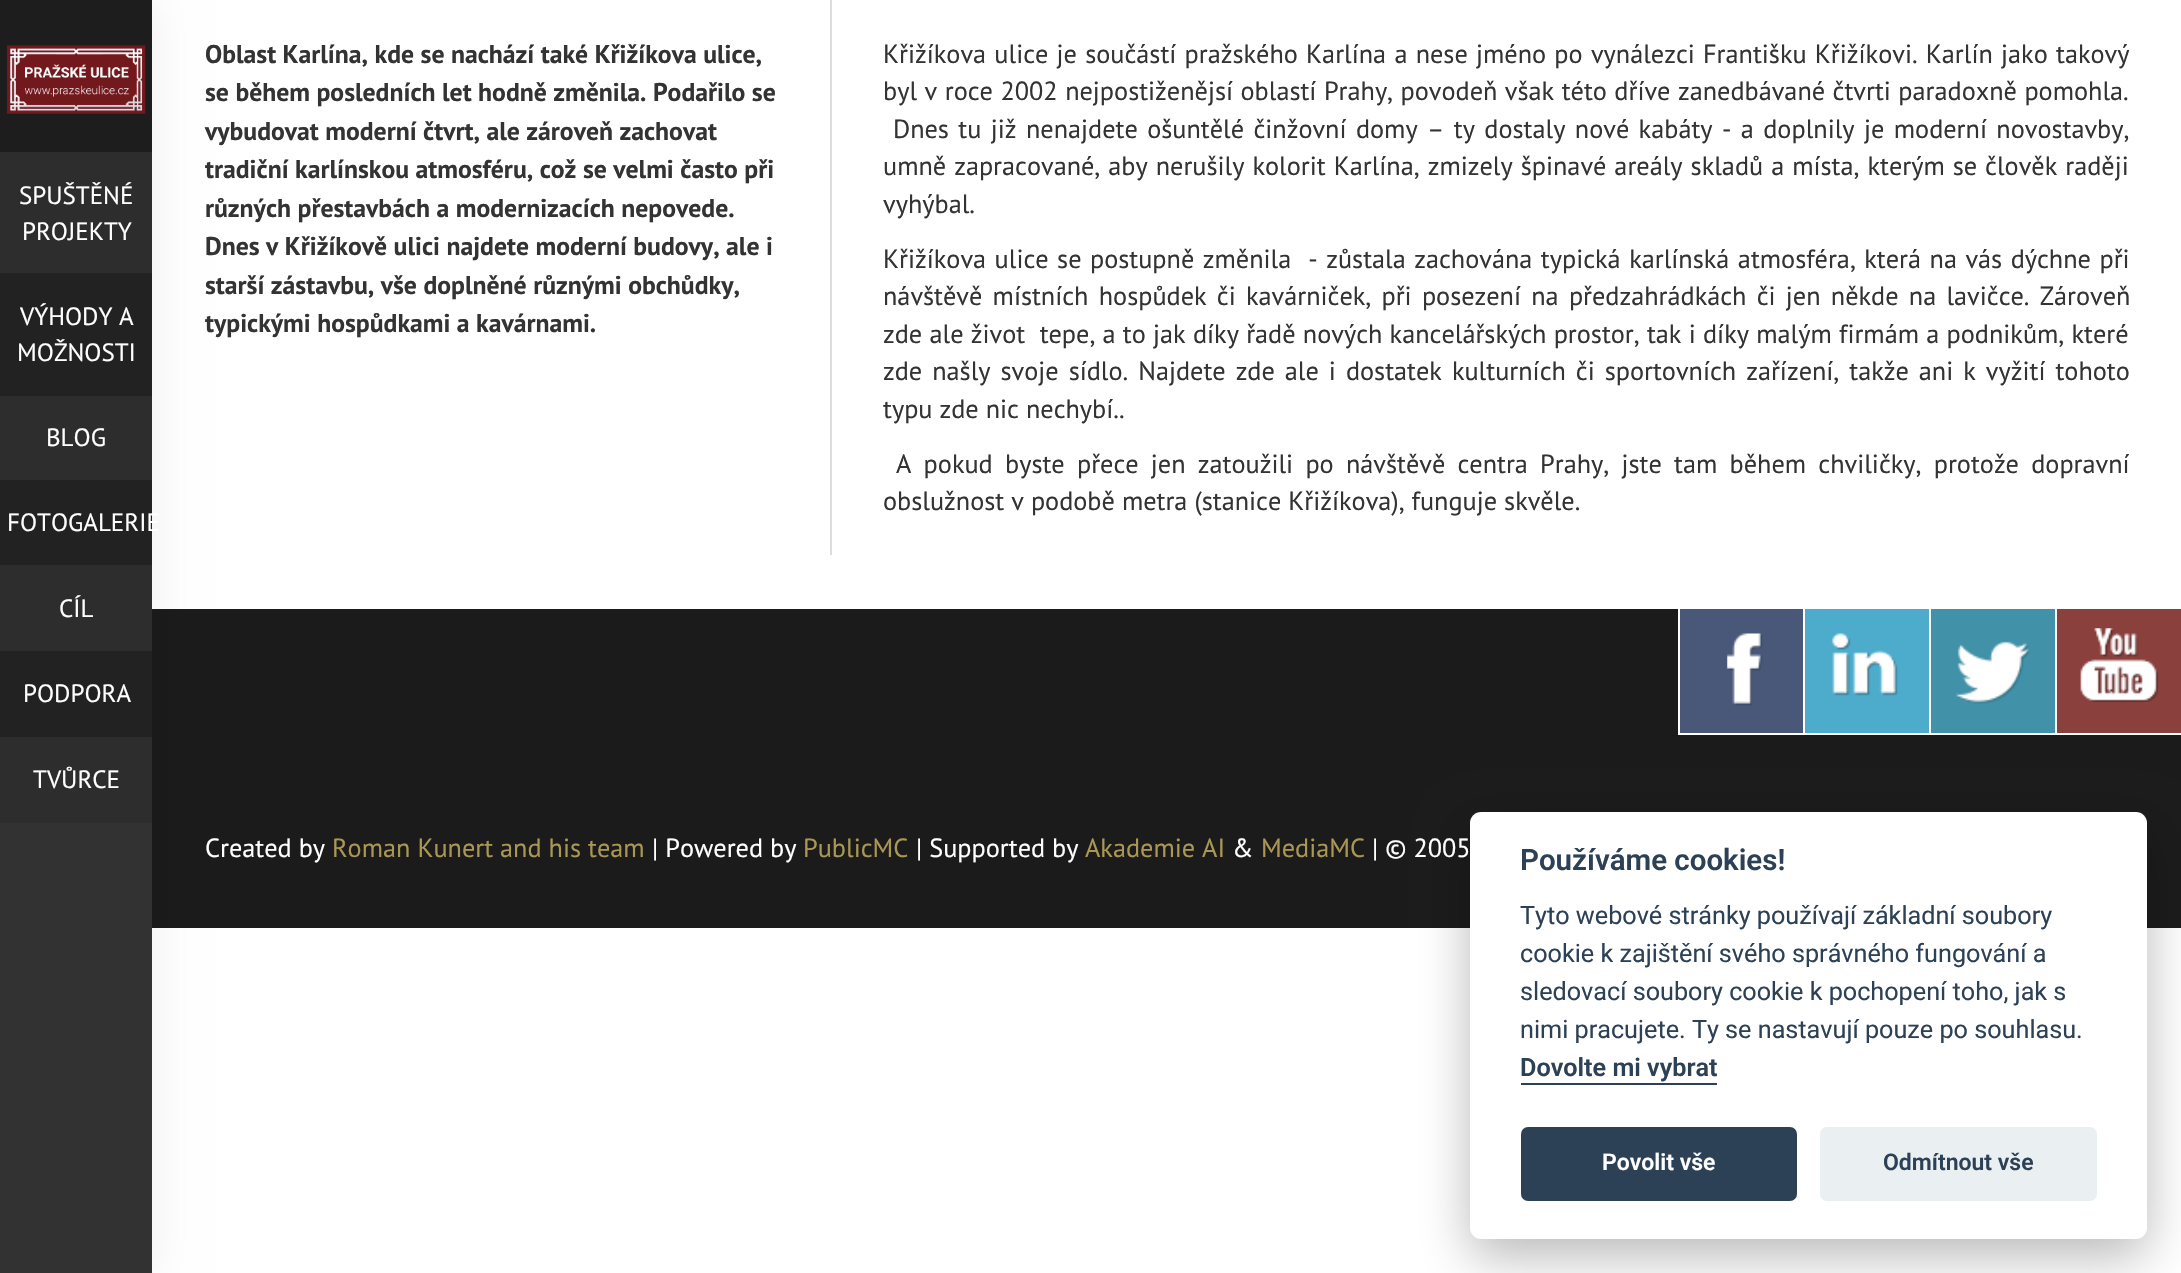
void draw(SkCanvas* canvas) {
	SkPaint fill;
	fill.setAntiAlias(true);
	auto makeFont = [&](const char* family, int weight, float size, bool italic = false) {
		SkFontStyle style(weight, SkFontStyle::kNormal_Width,
			italic ? SkFontStyle::kItalic_Slant : SkFontStyle::kUpright_Slant);
		SkFont result(fontMgr->matchFamilyStyle(family, style), size);
		result.setSubpixel(true);
		return result;
	};
	auto text = [&](const char* s, float x, float y, const SkFont& font) {
		canvas->drawString(s, x, y, font, fill);
	};
	auto spacedText = [&](const char* s, float x, float y, const SkFont& font, const SkPaint& ink, float letter, float word) {
		std::vector<SkGlyphID> glyphs(font.countText(s, strlen(s), SkTextEncoding::kUTF8));
		std::vector<float> xs(glyphs.size());
		font.textToGlyphs(s, strlen(s), SkTextEncoding::kUTF8, glyphs);
		font.getXPos(glyphs, xs, x);
		float extra = 0;
		for (size_t i = 0; i < glyphs.size(); i++) {
			xs[i] += extra;
			extra += letter + word * (glyphs[i] == font.unicharToGlyph(' '));
		}
		canvas->drawTextBlob(SkTextBlob::MakeFromPosHGlyphs(glyphs, xs, y, font), 0, 0, ink);
	};
	auto box = [&](float l, float t, float r, float b) {
		canvas->drawRect(SkRect::MakeLTRB(l, t, r, b), fill);
	};
	auto roundBox = [&](float l, float t, float r, float b, float radius) {
		canvas->drawRoundRect(SkRect::MakeLTRB(l, t, r, b), radius, radius, fill);
	};
	auto picture = [&](const char* path, float l, float t, float r, float b) {
		auto image = SkImages::DeferredFromEncodedData(SkData::MakeFromFileName(path));
		canvas->drawImageRect(image, SkRect::MakeLTRB(l, t, r, b), SkSamplingOptions());
	};
	canvas->clear(0xFFFFFFFF);
	fill.setColor(0xFF1B1B1B);
	box(152, 609, 2181, 928);
	fill.setColor(0x0D000000);
	fill.setMaskFilter(SkMaskFilter::MakeBlur(kNormal_SkBlurStyle, 19));
	canvas->drawRect(SkRect::MakeLTRB(5, 0, 158, 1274), fill);
	fill.setMaskFilter(nullptr);
	fill.setColor(0xFF323232);
	box(0, 823, 152, 1273);
	fill.setColor(0xFF1D1D1D);
	box(0, 0, 152, 152);
	picture("image0.png", 7, 45, 146, 114);
	fill.setColor(0xFF2D2D2D);
	box(0, 152, 152, 273);
	fill.setColor(0xFF222222);
	box(0, 273, 152, 396);
	fill.setColor(0xFF2D2D2D);
	box(0, 396, 152, 480);
	fill.setColor(0xFF222222);
	box(0, 480, 152, 565);
	fill.setColor(0xFF2D2D2D);
	box(0, 565, 152, 651);
	fill.setColor(0xFF222222);
	box(0, 651, 152, 737);
	fill.setColor(0xFF2D2D2D);
	box(0, 737, 152, 823);
	fill.setColor(0xFFDDDDDD);
	box(830, 0, 832, 555);
	fill.setColor(0xFF495878);
	box(1680, 609, 1803, 733);
	picture("image1.png", 1727, 633, 1763, 706);
	fill.setColor(0xFFFFFFFF);
	box(2056, 733, 2181, 735);
	box(2055, 609, 2057, 735);
	box(1930, 733, 2056, 735);
	box(1929, 609, 1931, 735);
	box(1804, 733, 1930, 735);
	box(1803, 609, 1805, 735);
	box(1678, 733, 1804, 735);
	box(1678, 609, 1680, 735);
	fill.setColor(0xFF4DABCC);
	box(1805, 609, 1929, 733);
	picture("image2.png", 1831, 633, 1898, 696);
	fill.setColor(0xFF4191A9);
	box(1931, 609, 2055, 733);
	picture("image3.png", 1956, 641, 2030, 704);
	fill.setColor(0xFF8A403D);
	box(2057, 609, 2181, 733);
	picture("image4.png", 2080, 628, 2159, 702);
	fill.setColor(0x47020203);
	fill.setMaskFilter(SkMaskFilter::MakeBlur(kNormal_SkBlurStyle, 26));
	canvas->drawRoundRect(SkRect::MakeLTRB(1470, 830, 2147, 1257), 11, 11, fill);
	fill.setMaskFilter(nullptr);
	fill.setColor(0xFFFFFFFF);
	roundBox(1470, 812, 2147, 1239, 11);
	fill.setColor(0xFF2D4156);
	box(1521, 1083, 1717, 1085);
	roundBox(1521, 1127, 1797, 1201, 7);
	fill.setColor(0xFFEAEFF2);
	roundBox(1820, 1127, 2097, 1201, 7);
	auto font1 = makeFont("PT Sans", 400, 25);
	fill.setColor(0xFFFFFFFF);
	text("SPUŠTĚNÉ", 19, 204, font1);
	text("PROJEKTY", 22, 240, font1);
	text("VÝHODY A", 20, 325, font1);
	text("MOŽNOSTI", 17, 361, font1);
	text("BLOG", 46, 446, font1);
	text("FOTOGALERIE", 7, 531, font1);
	text("CÍL", 59, 617, font1);
	text("PODPORA", 23, 702, font1);
	text("TVŮRCE", 33, 788, font1);
	auto font2 = makeFont("PT Sans", 700, 25.7f);
	fill.setColor(0xFF333333);
	text("Oblast Karlína, kde se nachází také Křižíkova ulice,", 205, 63, font2);
	text("se během posledních let hodně změnila. Podařilo se", 205, 101, font2);
	text("vybudovat moderní čtvrt, ale zároveň zachovat", 205, 140, font2);
	text("tradiční karlínskou atmosféru, což se velmi často při", 205, 178, font2);
	text("různých přestavbách a modernizacích nepovede.", 205, 217, font2);
	text("Dnes v Křižíkově ulici najdete moderní budovy, ale i", 205, 255, font2);
	text("starší zástavbu, vše doplněné různými obchůdky,", 205, 294, font2);
	text("typickými hospůdkami a kavárnami.", 205, 332, font2);
	auto font3 = makeFont("PT Sans", 400, 26.25f);
	spacedText("Křižíkova ulice je součástí pražského Karlína a nese jméno po vynálezci Františku Křižíkovi. Karlín jako takový", 883, 63, font3, fill, 0, 1.25f);
	spacedText("byl v roce 2002 nejpostiženějsí oblastí Prahy, povodeň však této dříve zanedbávané čtvrti paradoxně pomohla.", 883, 100, font3, fill, 0, 0.5f);
	spacedText("Dnes tu již nenajdete ošuntělé činžovní domy – ty dostaly nové kabáty - a doplnily je moderní novostavby,", 893, 138, font3, fill, 0, 2.4f);
	spacedText("umně zapracované, aby nerušily kolorit Karlína, zmizely špinavé areály skladů a místa, kterým se člověk raději", 883, 175, font3, fill, 0, 1);
	text("vyhýbal.", 883, 213, font3);
	spacedText("Křižíkova ulice se postupně změnila  - zůstala zachována typická karlínská atmosféra, která na vás dýchne při", 883, 268, font3, fill, 0, 1.5f);
	spacedText("návštěvě místních hospůdek či kavárniček, při posezení na předzahrádkách či jen někde na lavičce. Zároveň", 883, 305, font3, fill, 0, 3.25f);
	spacedText("zde ale život  tepe, a to jak díky řadě nových kancelářských prostor, tak i díky malým firmám a podnikům, které", 883, 343, font3, fill, 0, 0.25f);
	spacedText("zde našly svoje sídlo. Najdete zde ale i dostatek kulturních či sportovních zařízení, takže ani k vyžití tohoto", 883, 380, font3, fill, 0, 3);
	text("typu zde nic nechybí..", 883, 418, font3);
	spacedText("A pokud byste přece jen zatoužili po návštěvě centra Prahy, jste tam během chviličky, protože dopravní", 896, 473, font3, fill, 0, 5.25f);
	text("obslužnost v podobě metra (stanice Křižíkova), funguje skvěle.", 883, 510, font3);
	fill.setColor(0xFFFFFFFF);
	text("Created by", 205, 857, font3);
	fill.setColor(0xFFA99753);
	text("Roman Kunert and his team", 332, 857, font3);
	fill.setColor(0xFFFFFFFF);
	text("| Powered by", 652, 857, font3);
	fill.setColor(0xFFA99753);
	text("PublicMC", 803, 857, font3);
	fill.setColor(0xFFFFFFFF);
	text("| Supported by", 916, 857, font3);
	fill.setColor(0xFFA99753);
	text("Akademie AI", 1085, 857, font3);
	fill.setColor(0xFFFFFFFF);
	text("&", 1232, 857, font3);
	fill.setColor(0xFFA99753);
	text("MediaMC", 1261, 857, font3);
	fill.setColor(0xFFFFFFFF);
	text("| © 2005", 1372, 857, font3);
	auto font4 = makeFont("Roboto", 600, 29.5f);
	fill.setColor(0xFF2D4156);
	text("Používáme cookies!", 1520, 870, font4);
	auto font5 = makeFont("Roboto", 400, 25.2f);
	text("Tyto webové stránky používají základní soubory", 1520, 924, font5);
	text("cookie k zajištění svého správného fungování a", 1520, 962, font5);
	text("sledovací soubory cookie k pochopení toho, jak s", 1520, 1000, font5);
	text("nimi pracujete. Ty se nastavují pouze po souhlasu.", 1520, 1038, font5);
	auto font6 = makeFont("Roboto", 600, 25.2f);
	text("Dovolte mi vybrat", 1520, 1076, font6);
	auto font7 = makeFont("Roboto", 600, 23);
	fill.setColor(0xFFFFFFFF);
	text("Povolit vše", 1602, 1170, font7);
	fill.setColor(0xFF2D4156);
	text("Odmítnout vše", 1883, 1170, font7);
}
